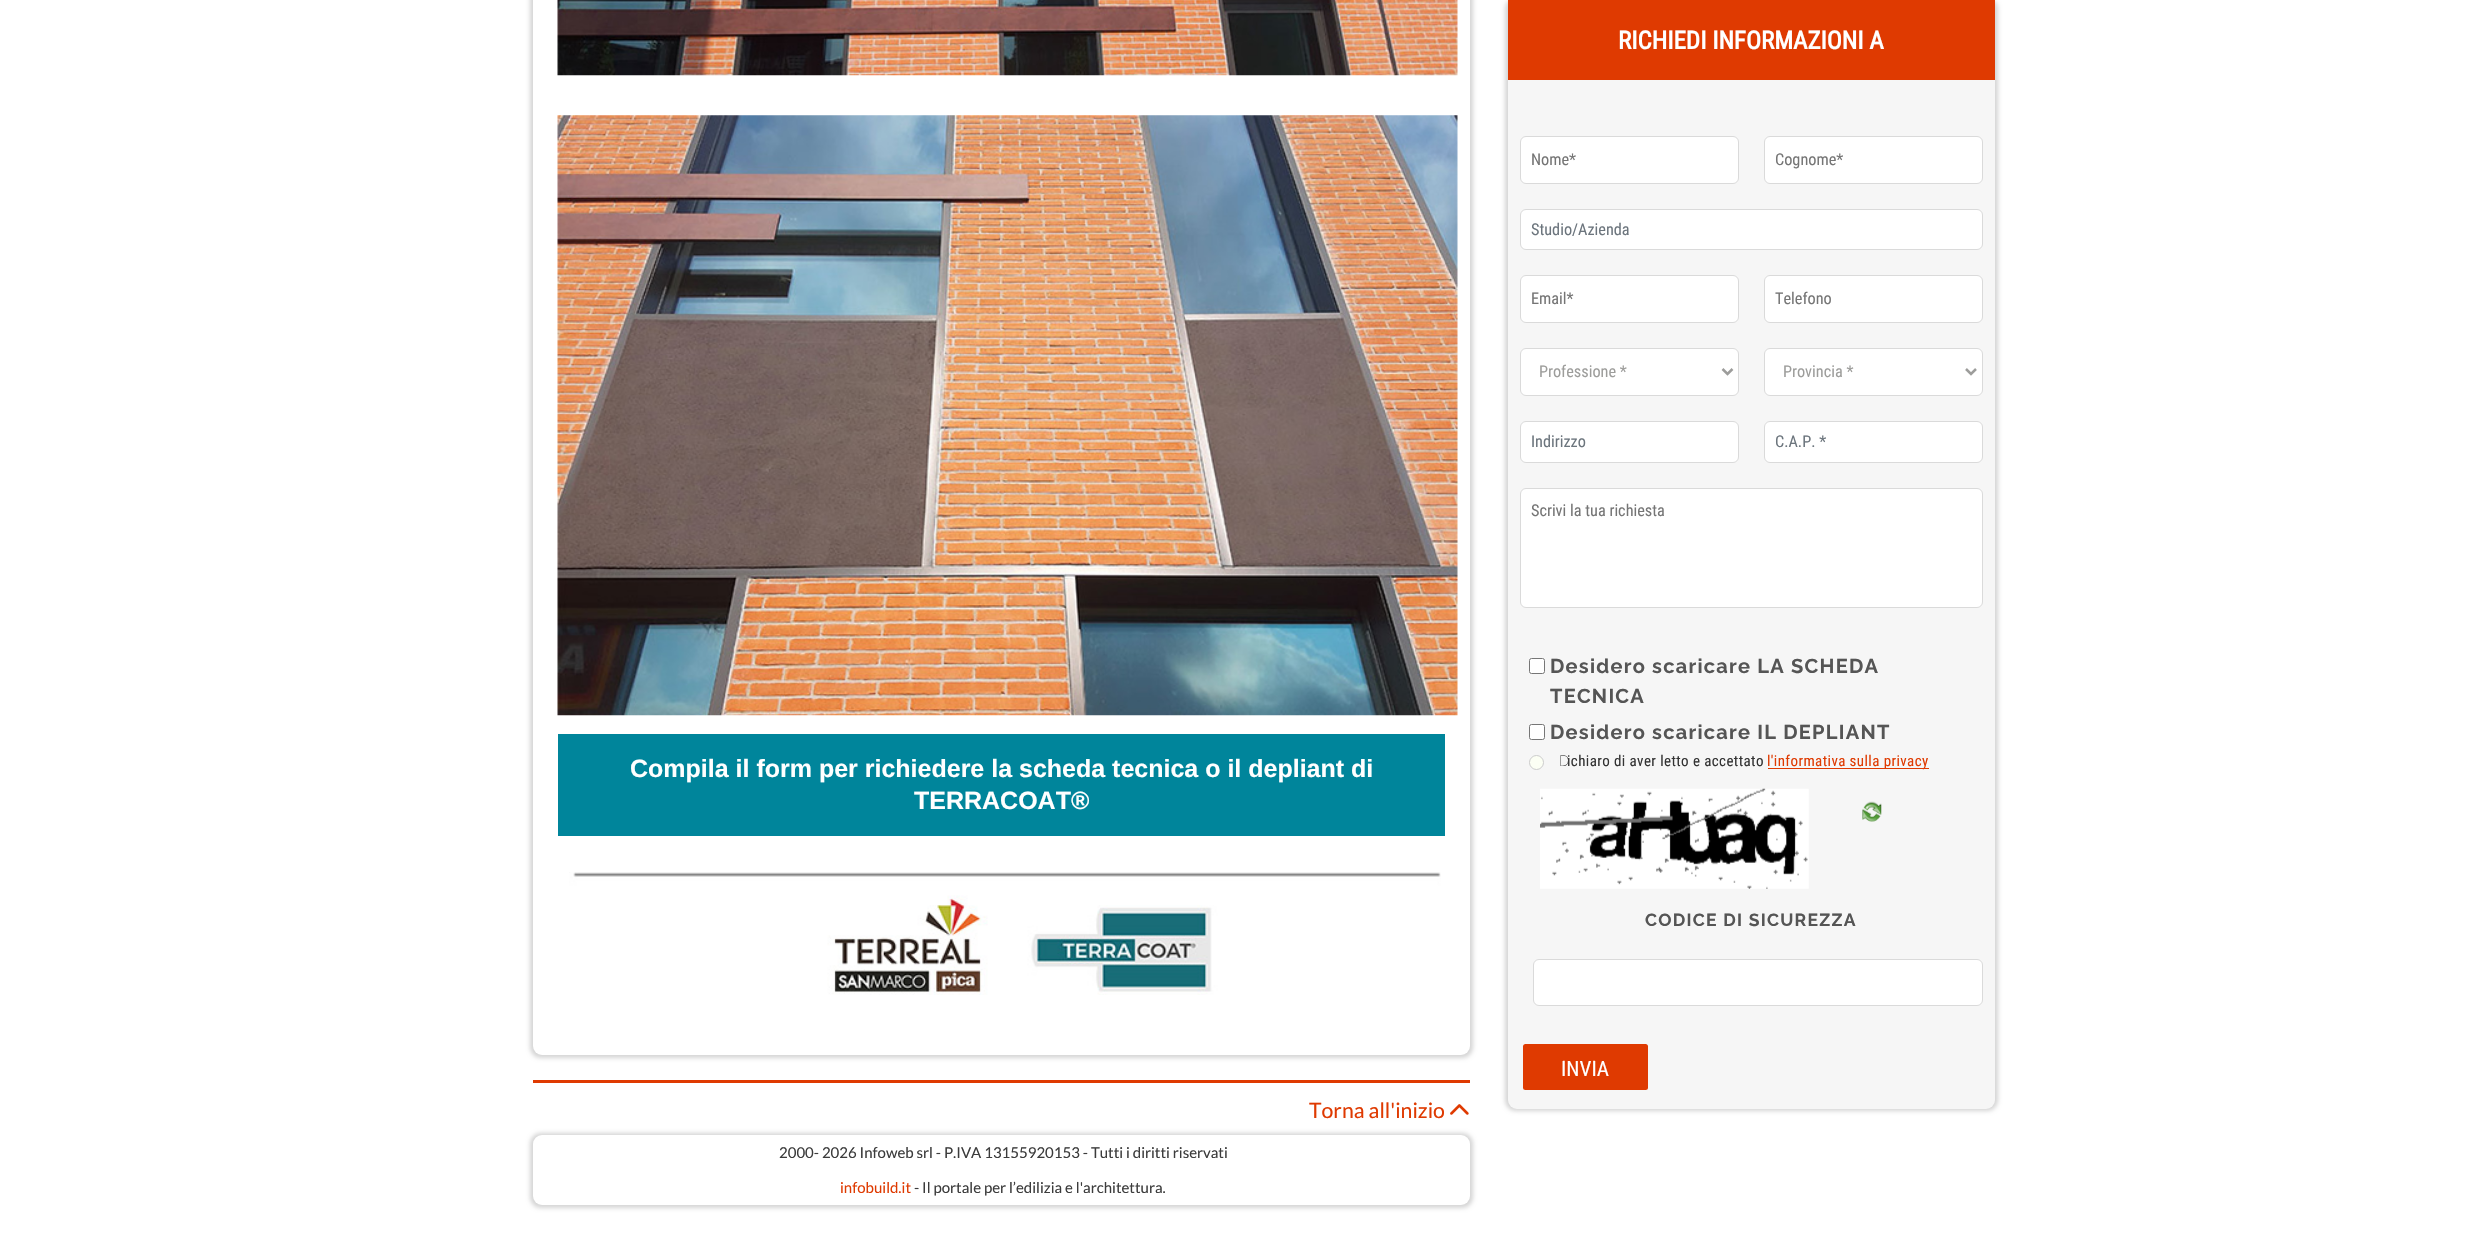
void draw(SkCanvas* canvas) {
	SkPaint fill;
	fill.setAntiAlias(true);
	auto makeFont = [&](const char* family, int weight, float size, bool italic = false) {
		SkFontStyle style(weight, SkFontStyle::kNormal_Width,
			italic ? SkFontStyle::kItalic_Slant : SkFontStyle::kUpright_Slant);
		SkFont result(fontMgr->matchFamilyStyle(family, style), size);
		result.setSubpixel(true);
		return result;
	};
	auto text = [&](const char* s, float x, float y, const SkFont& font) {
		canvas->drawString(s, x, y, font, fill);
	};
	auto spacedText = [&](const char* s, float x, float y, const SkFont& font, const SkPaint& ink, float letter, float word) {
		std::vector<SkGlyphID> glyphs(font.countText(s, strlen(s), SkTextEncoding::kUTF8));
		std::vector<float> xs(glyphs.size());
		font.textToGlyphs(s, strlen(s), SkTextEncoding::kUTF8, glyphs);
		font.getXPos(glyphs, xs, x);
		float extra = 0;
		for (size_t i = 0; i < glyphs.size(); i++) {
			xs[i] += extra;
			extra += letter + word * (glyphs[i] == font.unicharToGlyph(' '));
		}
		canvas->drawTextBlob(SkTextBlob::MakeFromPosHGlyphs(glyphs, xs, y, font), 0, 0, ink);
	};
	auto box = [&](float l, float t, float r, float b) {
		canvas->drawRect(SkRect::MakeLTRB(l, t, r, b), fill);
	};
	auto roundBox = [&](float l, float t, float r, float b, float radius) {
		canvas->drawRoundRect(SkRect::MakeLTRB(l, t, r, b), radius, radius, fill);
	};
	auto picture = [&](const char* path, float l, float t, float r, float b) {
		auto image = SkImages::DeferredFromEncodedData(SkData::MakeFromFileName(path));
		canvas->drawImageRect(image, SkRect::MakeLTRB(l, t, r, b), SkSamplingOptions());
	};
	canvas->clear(0xFFFFFFFF);
	fill.setColor(0xFFD5D5D5);
	fill.setMaskFilter(SkMaskFilter::MakeBlur(kNormal_SkBlurStyle, 2));
	canvas->drawRoundRect(SkRect::MakeLTRB(530, -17, 1473, 1058), 11, 11, fill);
	fill.setMaskFilter(nullptr);
	fill.setColor(0xFFFFFFFF);
	roundBox(533, -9, 1470, 1055, 9);
	picture("image0.png", 557, 0, 1458, 76);
	picture("image1.png", 557, 115, 1458, 716);
	fill.setColor(0xFF00859B);
	box(558, 734, 1445, 836);
	picture("image2.png", 569, 872, 1441, 995);
	fill.setColor(0xFFDF3A01);
	box(533, 1080, 1470, 1083);
	picture("image3.png", 1450, 1104, 1469, 1115);
	fill.setColor(0xFFD5D5D5);
	fill.setMaskFilter(SkMaskFilter::MakeBlur(kNormal_SkBlurStyle, 2));
	canvas->drawRoundRect(SkRect::MakeLTRB(530, 1133, 1473, 1208), 11, 11, fill);
	fill.setMaskFilter(nullptr);
	fill.setColor(0xFFFFFFFF);
	roundBox(533, 1135, 1470, 1205, 9);
	fill.setColor(0xFFD5D5D5);
	fill.setMaskFilter(SkMaskFilter::MakeBlur(kNormal_SkBlurStyle, 2));
	canvas->drawRoundRect(SkRect::MakeLTRB(1505, -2, 1998, 1111), 11, 11, fill);
	fill.setMaskFilter(nullptr);
	fill.setColor(0xFFF6F6F6);
	roundBox(1508, 0, 1995, 1109, 9);
	fill.setColor(0xFFDF3A01);
	box(1508, 0, 1995, 80);
	fill.setColor(0xFFFFFFFF);
	canvas->drawRoundRect(SkRect::MakeLTRB(1520.5f, 136.5f, 1738.5f, 183.5f), 5.5f, 5.5f, fill);
	fill.setStyle(SkPaint::kStroke_Style);
	fill.setStrokeWidth(1);
	fill.setColor(0xFFDADADA);
	canvas->drawRoundRect(SkRect::MakeLTRB(1520.5f, 136.5f, 1738.5f, 183.5f), 5.5f, 5.5f, fill);
	fill.setStyle(SkPaint::kFill_Style);
	fill.setColor(0xFFFFFFFF);
	canvas->drawRoundRect(SkRect::MakeLTRB(1764.5f, 136.5f, 1982.5f, 183.5f), 5.5f, 5.5f, fill);
	fill.setStyle(SkPaint::kStroke_Style);
	fill.setColor(0xFFDADADA);
	canvas->drawRoundRect(SkRect::MakeLTRB(1764.5f, 136.5f, 1982.5f, 183.5f), 5.5f, 5.5f, fill);
	fill.setStyle(SkPaint::kFill_Style);
	fill.setColor(0xFFFFFFFF);
	canvas->drawRoundRect(SkRect::MakeLTRB(1520.5f, 209.5f, 1982.5f, 249.5f), 5.5f, 5.5f, fill);
	fill.setStyle(SkPaint::kStroke_Style);
	fill.setColor(0xFFDADADA);
	canvas->drawRoundRect(SkRect::MakeLTRB(1520.5f, 209.5f, 1982.5f, 249.5f), 5.5f, 5.5f, fill);
	fill.setStyle(SkPaint::kFill_Style);
	fill.setColor(0xFFFFFFFF);
	canvas->drawRoundRect(SkRect::MakeLTRB(1520.5f, 275.5f, 1738.5f, 322.5f), 5.5f, 5.5f, fill);
	fill.setStyle(SkPaint::kStroke_Style);
	fill.setColor(0xFFDADADA);
	canvas->drawRoundRect(SkRect::MakeLTRB(1520.5f, 275.5f, 1738.5f, 322.5f), 5.5f, 5.5f, fill);
	fill.setStyle(SkPaint::kFill_Style);
	fill.setColor(0xFFFFFFFF);
	canvas->drawRoundRect(SkRect::MakeLTRB(1764.5f, 275.5f, 1982.5f, 322.5f), 5.5f, 5.5f, fill);
	fill.setStyle(SkPaint::kStroke_Style);
	fill.setColor(0xFFDADADA);
	canvas->drawRoundRect(SkRect::MakeLTRB(1764.5f, 275.5f, 1982.5f, 322.5f), 5.5f, 5.5f, fill);
	fill.setStyle(SkPaint::kFill_Style);
	fill.setColor(0xFFFFFFFF);
	canvas->drawRoundRect(SkRect::MakeLTRB(1520.5f, 348.5f, 1738.5f, 395.5f), 5.5f, 5.5f, fill);
	fill.setStyle(SkPaint::kStroke_Style);
	fill.setColor(0xFFDADADA);
	canvas->drawRoundRect(SkRect::MakeLTRB(1520.5f, 348.5f, 1738.5f, 395.5f), 5.5f, 5.5f, fill);
	fill.setStrokeWidth(2.5f);
	fill.setColor(0xFF9D9D9B);
	canvas->drawPath(SkPathBuilder().moveTo(1722.5f, 369).lineTo(1727.5f, 374).lineTo(1732.5f, 369).detach(), fill);
	fill.setStyle(SkPaint::kFill_Style);
	fill.setColor(0xFFFFFFFF);
	canvas->drawRoundRect(SkRect::MakeLTRB(1764.5f, 348.5f, 1982.5f, 395.5f), 5.5f, 5.5f, fill);
	fill.setStyle(SkPaint::kStroke_Style);
	fill.setStrokeWidth(1);
	fill.setColor(0xFFDADADA);
	canvas->drawRoundRect(SkRect::MakeLTRB(1764.5f, 348.5f, 1982.5f, 395.5f), 5.5f, 5.5f, fill);
	fill.setStrokeWidth(2.5f);
	fill.setColor(0xFF9D9D9B);
	canvas->drawPath(SkPathBuilder().moveTo(1966, 369).lineTo(1971, 374).lineTo(1976, 369).detach(), fill);
	fill.setStyle(SkPaint::kFill_Style);
	fill.setColor(0xFFFFFFFF);
	canvas->drawRoundRect(SkRect::MakeLTRB(1520.5f, 421.5f, 1738.5f, 462.5f), 5.5f, 5.5f, fill);
	fill.setStyle(SkPaint::kStroke_Style);
	fill.setStrokeWidth(1);
	fill.setColor(0xFFDADADA);
	canvas->drawRoundRect(SkRect::MakeLTRB(1520.5f, 421.5f, 1738.5f, 462.5f), 5.5f, 5.5f, fill);
	fill.setStyle(SkPaint::kFill_Style);
	fill.setColor(0xFFFFFFFF);
	canvas->drawRoundRect(SkRect::MakeLTRB(1764.5f, 421.5f, 1982.5f, 462.5f), 5.5f, 5.5f, fill);
	fill.setStyle(SkPaint::kStroke_Style);
	fill.setColor(0xFFDADADA);
	canvas->drawRoundRect(SkRect::MakeLTRB(1764.5f, 421.5f, 1982.5f, 462.5f), 5.5f, 5.5f, fill);
	fill.setStyle(SkPaint::kFill_Style);
	fill.setColor(0xFFFFFFFF);
	canvas->drawRoundRect(SkRect::MakeLTRB(1520.5f, 488.5f, 1982.5f, 607.5f), 5.5f, 5.5f, fill);
	fill.setStyle(SkPaint::kStroke_Style);
	fill.setColor(0xFFDADADA);
	canvas->drawRoundRect(SkRect::MakeLTRB(1520.5f, 488.5f, 1982.5f, 607.5f), 5.5f, 5.5f, fill);
	fill.setStyle(SkPaint::kFill_Style);
	fill.setColor(0xFFFFFFFF);
	canvas->drawRoundRect(SkRect::MakeLTRB(1529.5f, 658.5f, 1544.5f, 673.5f), 2, 2, fill);
	fill.setStyle(SkPaint::kStroke_Style);
	fill.setColor(0xFF767676);
	canvas->drawRoundRect(SkRect::MakeLTRB(1529.5f, 658.5f, 1544.5f, 673.5f), 2, 2, fill);
	fill.setStyle(SkPaint::kFill_Style);
	fill.setColor(0xFFFFFFFF);
	canvas->drawRoundRect(SkRect::MakeLTRB(1529.5f, 724.5f, 1544.5f, 739.5f), 2, 2, fill);
	fill.setStyle(SkPaint::kStroke_Style);
	fill.setColor(0xFF767676);
	canvas->drawRoundRect(SkRect::MakeLTRB(1529.5f, 724.5f, 1544.5f, 739.5f), 2, 2, fill);
	fill.setStyle(SkPaint::kFill_Style);
	fill.setColor(0xFFFCFFF4);
	canvas->drawCircle(1536.5f, 762.5f, 7, fill);
	fill.setStyle(SkPaint::kStroke_Style);
	fill.setColor(0xFFCCCCCC);
	canvas->drawCircle(1536.5f, 762.5f, 7, fill);
	fill.setStyle(SkPaint::kFill_Style);
	fill.setColor(0xFFDF3A01);
	box(1768, 768, 1929, 769);
	picture("image4.png", 1540, 788, 1809, 889);
	picture("image5.png", 1862, 801, 1882, 822);
	fill.setColor(0xFFFFFFFF);
	canvas->drawRoundRect(SkRect::MakeLTRB(1533.5f, 959.5f, 1982.5f, 1005.5f), 5.5f, 5.5f, fill);
	fill.setStyle(SkPaint::kStroke_Style);
	fill.setColor(0xFFDADADA);
	canvas->drawRoundRect(SkRect::MakeLTRB(1533.5f, 959.5f, 1982.5f, 1005.5f), 5.5f, 5.5f, fill);
	fill.setStyle(SkPaint::kFill_Style);
	fill.setColor(0xFFDF3A01);
	roundBox(1523, 1044, 1648, 1090, 2.5f);
	auto font1 = makeFont("Liberation Sans", 700, 25);
	fill.setColor(0xFFFFFFFF);
	text("Compila il form per richiedere la scheda tecnica o il depliant di", 630, 777, font1);
	text("TERRACOAT®", 914, 809, font1);
	auto font2 = makeFont("Lato", 400, 21.25f);
	fill.setColor(0xFFDF3A01);
	text("Torna all'inizio", 1309, 1118, font2);
	auto font3 = makeFont("Lato", 400, 15);
	fill.setColor(0xFF3C3C3C);
	text("2000- 2026 Infoweb srl - P.IVA 13155920153 - Tutti i diritti riservati", 779, 1158, font3);
	fill.setColor(0xFFDF3A01);
	text("infobuild.it", 840, 1193, font3);
	fill.setColor(0xFF3C3C3C);
	text("- Il portale per l’edilizia e l'architettura.", 914, 1193, font3);
	auto font4 = makeFont("Roboto Condensed", 700, 25);
	fill.setColor(0xFFFFFFFF);
	text("RICHIEDI INFORMAZIONI A", 1618, 49, font4);
	auto font5 = makeFont("Roboto Condensed", 400, 16.25f);
	fill.setColor(0xFF757575);
	text("Nome*", 1531, 165, font5);
	text("Cognome*", 1775, 165, font5);
	fill.setColor(0xFF6C757D);
	text("Studio/Azienda", 1531, 235, font5);
	fill.setColor(0xFF757575);
	text("Email*", 1531, 304, font5);
	text("Telefono", 1775, 304, font5);
	fill.setColor(0xFF9D9D9B);
	text("Professione *", 1539, 377, font5);
	text("Provincia *", 1783, 377, font5);
	fill.setColor(0xFF6C757D);
	text("Indirizzo", 1531, 447, font5);
	text("C.A.P. *", 1775, 447, font5);
	fill.setColor(0xFF757575);
	text("Scrivi la tua richiesta", 1531, 516, font5);
	auto font6 = makeFont("Raleway", 700, 20);
	fill.setColor(0xFF555555);
	spacedText("Desidero scaricare LA SCHEDA", 1550, 673, font6, fill, 1.25f, 0);
	spacedText("TECNICA", 1550, 703, font6, fill, 1.25f, 0);
	spacedText("Desidero scaricare IL DEPLIANT", 1550, 739, font6, fill, 1.25f, 0);
	auto font7 = makeFont("Noto Sans", 100, 15);
	fill.setColor(0xFF333333);
	spacedText("D", 1559, 766, font7, fill, 0.4f, 0);
	auto font8 = makeFont("Roboto Condensed", 400, 15);
	spacedText("ichiaro di aver letto e accettato", 1567, 766, font8, fill, 0.4f, 0);
	fill.setColor(0xFFDF3A01);
	spacedText("l'informativa sulla privacy", 1767, 766, font8, fill, 0.4f, 0);
	auto font9 = makeFont("Raleway", 700, 17.5f);
	fill.setColor(0xFF555555);
	spacedText("CODICE DI SICUREZZA", 1645, 926, font9, fill, 1.25f, 0);
	auto font10 = makeFont("Roboto Condensed", 400, 21.25f);
	fill.setColor(0xFFFFFFFF);
	text("INVIA", 1561, 1076, font10);
}
